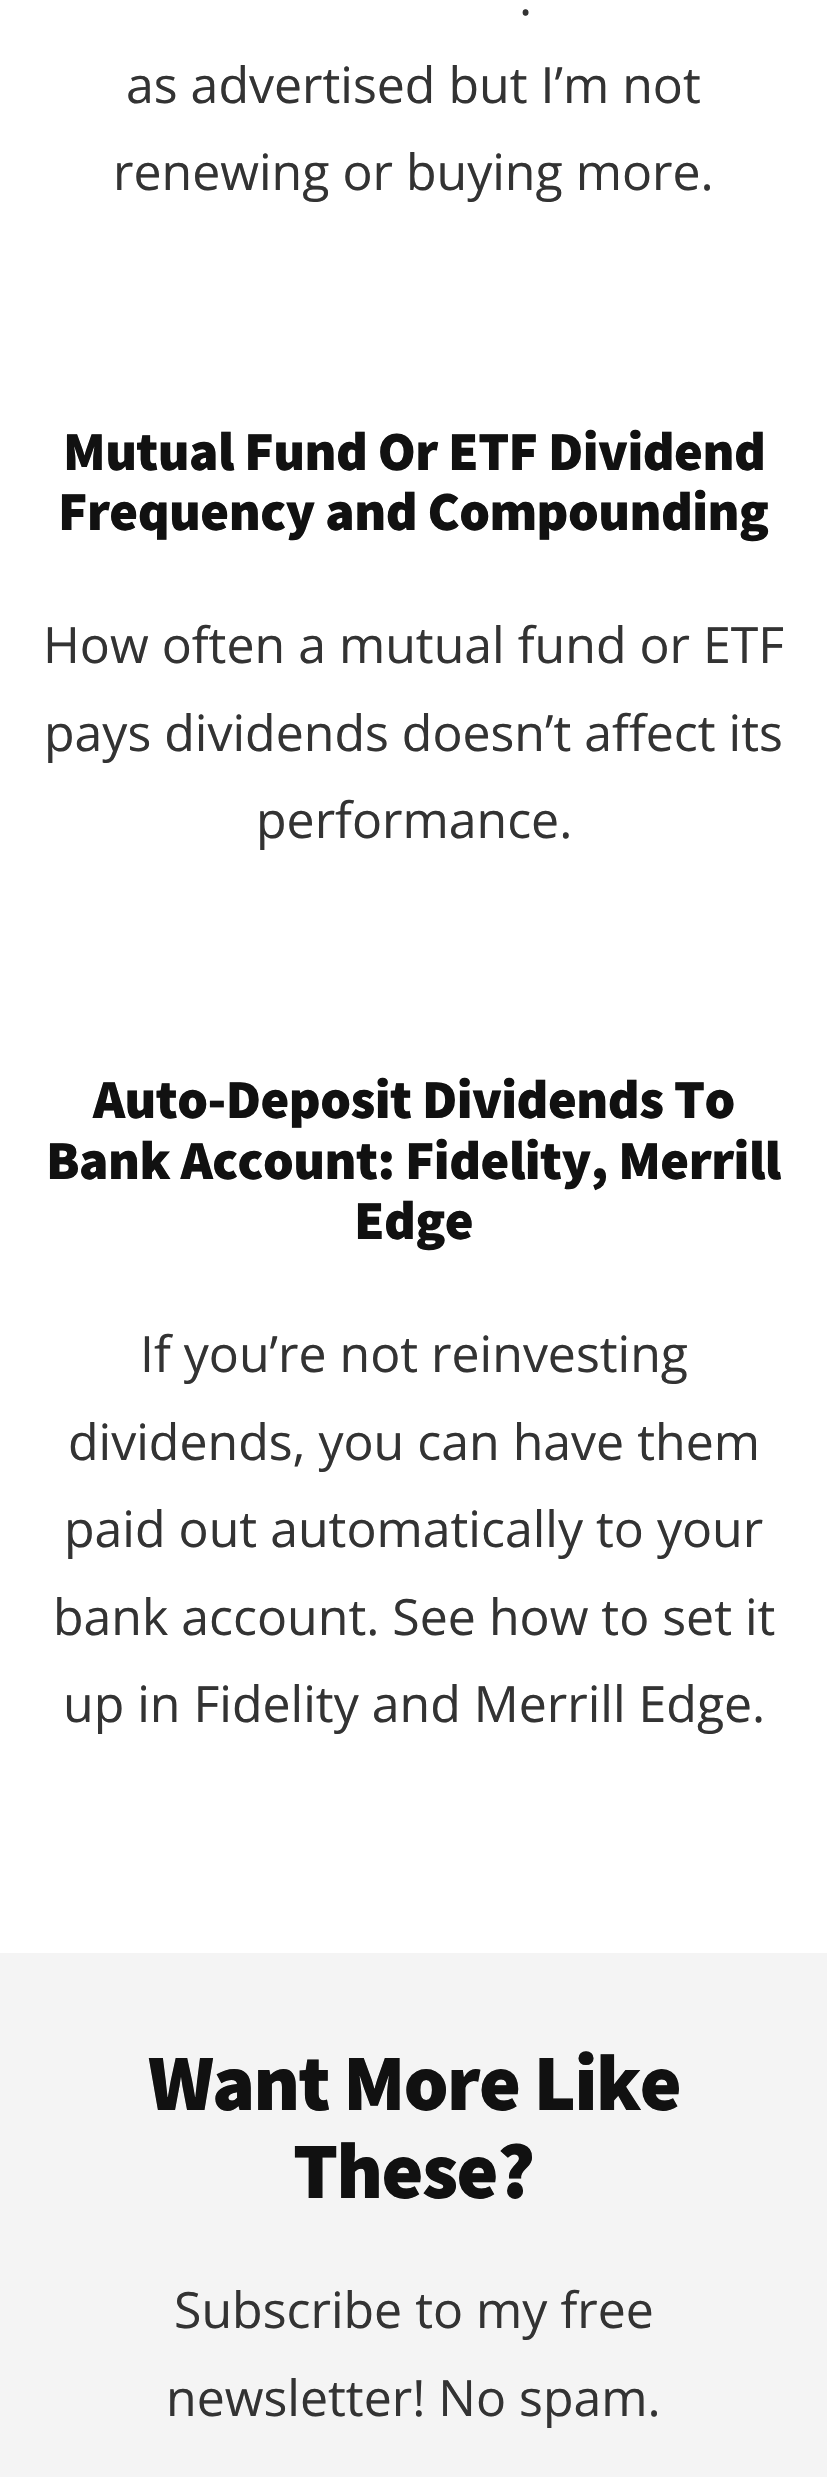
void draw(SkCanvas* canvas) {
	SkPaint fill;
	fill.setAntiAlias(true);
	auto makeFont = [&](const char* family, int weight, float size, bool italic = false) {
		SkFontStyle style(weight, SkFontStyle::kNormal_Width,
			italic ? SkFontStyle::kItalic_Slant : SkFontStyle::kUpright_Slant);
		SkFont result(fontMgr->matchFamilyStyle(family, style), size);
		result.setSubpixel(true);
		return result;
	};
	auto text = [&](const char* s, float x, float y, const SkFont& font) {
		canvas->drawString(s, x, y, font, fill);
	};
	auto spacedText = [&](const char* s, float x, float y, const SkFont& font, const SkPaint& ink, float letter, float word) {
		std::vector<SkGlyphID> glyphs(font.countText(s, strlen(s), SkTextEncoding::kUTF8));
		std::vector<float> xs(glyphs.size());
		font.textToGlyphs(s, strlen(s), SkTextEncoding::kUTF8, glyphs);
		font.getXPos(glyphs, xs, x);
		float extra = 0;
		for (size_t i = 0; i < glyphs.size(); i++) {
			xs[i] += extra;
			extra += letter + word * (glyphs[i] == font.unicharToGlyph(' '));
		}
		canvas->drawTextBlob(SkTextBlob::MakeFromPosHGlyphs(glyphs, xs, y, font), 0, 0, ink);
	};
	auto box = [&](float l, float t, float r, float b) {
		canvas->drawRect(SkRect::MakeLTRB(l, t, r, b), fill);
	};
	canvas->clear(0xFFFFFFFF);
	fill.setColor(0xFFF4F4F4);
	box(0, 1953, 827, 2477);
	auto font1 = makeFont("Open Sans", 400, 50);
	fill.setColor(0xFF333333);
	text(".", 519, 15, font1);
	text("as advertised but I’m not", 126, 103, font1);
	text("renewing or buying more.", 113, 190, font1);
	auto font2 = makeFont("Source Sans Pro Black", 900, 55);
	fill.setColor(0xFF111111);
	spacedText("Mutual Fund Or ETF Dividend", 63, 470, font2, fill, -0.55f, 0);
	spacedText("Frequency and Compounding", 58, 530, font2, fill, -0.55f, 0);
	fill.setColor(0xFF333333);
	text("How often a mutual fund or ETF", 43, 663, font1);
	text("pays dividends doesn’t affect its", 44, 751, font1);
	text("performance.", 256, 838, font1);
	fill.setColor(0xFF111111);
	spacedText("Auto-Deposit Dividends To", 93, 1118, font2, fill, -0.55f, 0);
	spacedText("Bank Account: Fidelity, Merrill", 46, 1179, font2, fill, -0.55f, 0);
	spacedText("Edge", 354, 1239, font2, fill, -0.55f, 0);
	fill.setColor(0xFF333333);
	text("If you’re not reinvesting", 140, 1372, font1);
	text("dividends, you can have them", 68, 1460, font1);
	text("paid out automatically to your", 64, 1547, font1);
	text("bank account. See how to set it", 53, 1635, font1);
	text("up in Fidelity and Merrill Edge.", 63, 1722, font1);
	auto font3 = makeFont("Source Sans Pro Black", 900, 80);
	fill.setColor(0xFF111111);
	spacedText("Want More Like", 148, 2110, font3, fill, -1.6f, 0);
	spacedText("These?", 293, 2198, font3, fill, -1.6f, 0);
	fill.setColor(0xFF333333);
	text("Subscribe to my free", 174, 2328, font1);
	text("newsletter! No spam.", 166, 2416, font1);
}
